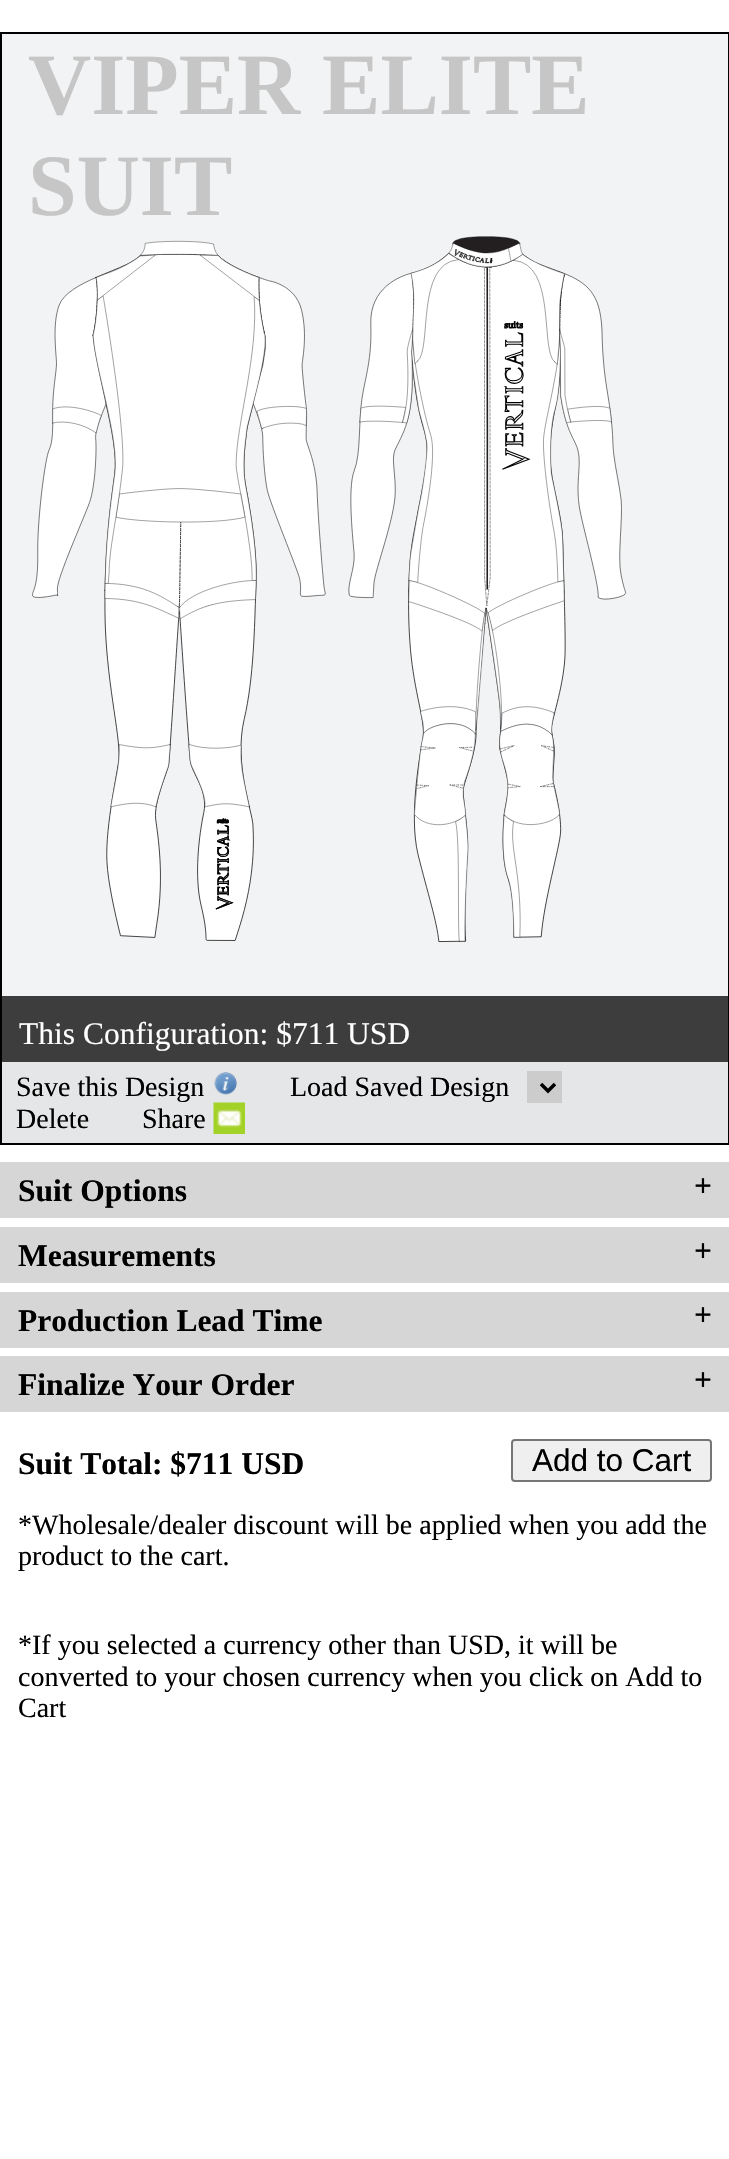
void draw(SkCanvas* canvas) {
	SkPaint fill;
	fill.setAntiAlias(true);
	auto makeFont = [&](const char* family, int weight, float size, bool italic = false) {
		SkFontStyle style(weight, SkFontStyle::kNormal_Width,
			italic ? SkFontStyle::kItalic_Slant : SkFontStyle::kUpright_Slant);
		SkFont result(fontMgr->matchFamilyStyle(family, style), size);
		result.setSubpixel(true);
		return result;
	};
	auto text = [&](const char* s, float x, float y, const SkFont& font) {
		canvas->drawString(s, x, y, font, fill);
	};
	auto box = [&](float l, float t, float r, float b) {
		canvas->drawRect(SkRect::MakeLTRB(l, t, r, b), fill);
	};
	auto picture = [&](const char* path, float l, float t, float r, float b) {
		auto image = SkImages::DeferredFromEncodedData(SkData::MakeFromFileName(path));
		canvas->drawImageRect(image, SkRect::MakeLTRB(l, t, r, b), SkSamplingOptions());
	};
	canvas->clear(0xFFFFFFFF);
	fill.setColor(0xFFF2F3F4);
	box(2, 34, 728, 996);
	fill.setStyle(SkPaint::kStroke_Style);
	fill.setStrokeWidth(2);
	fill.setColor(0xFF000000);
	canvas->drawRect(SkRect::MakeLTRB(1, 33, 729, 1144), fill);
	picture("image0.png", 32, 236, 627, 943);
	fill.setStyle(SkPaint::kFill_Style);
	fill.setColor(0xFF3D3D3D);
	box(2, 996, 728, 1062);
	fill.setColor(0xFFE5E6E7);
	box(2, 1062, 728, 1143);
	picture("image1.png", 214, 1072, 237, 1095);
	fill.setColor(0xFFCCCCCC);
	box(527, 1071, 562, 1103);
	fill.setStyle(SkPaint::kStroke_Style);
	fill.setStrokeWidth(3.5f);
	fill.setColor(0xFF000000);
	canvas->drawPath(SkPathBuilder().moveTo(541, 1084).lineTo(548, 1091).lineTo(555, 1084).detach(), fill);
	picture("image2.png", 213, 1102, 245, 1134);
	fill.setStyle(SkPaint::kFill_Style);
	fill.setColor(0xFFD6D6D6);
	box(0, 1162, 729, 1218);
	box(0, 1227, 729, 1283);
	box(0, 1292, 729, 1348);
	box(0, 1356, 729, 1412);
	fill.setColor(0xFFEFEFEF);
	canvas->drawRoundRect(SkRect::MakeLTRB(512, 1440, 711, 1481), 3, 3, fill);
	fill.setStyle(SkPaint::kStroke_Style);
	fill.setStrokeWidth(2);
	fill.setColor(0xFF767676);
	canvas->drawRoundRect(SkRect::MakeLTRB(512, 1440, 711, 1481), 3, 3, fill);
	auto font1 = makeFont("Liberation Serif", 700, 87.5f);
	fill.setStyle(SkPaint::kFill_Style);
	fill.setColor(0xFFC6C6C6);
	text("VIPER ELITE", 28, 114, font1);
	text("SUIT", 28, 215, font1);
	auto font2 = makeFont("Liberation Serif", 400, 31.5f);
	fill.setColor(0xFFFFFFFF);
	text("This Configuration: $711 USD", 19, 1044, font2);
	auto font3 = makeFont("Liberation Serif", 400, 28);
	fill.setColor(0xFF000000);
	text("Save this Design", 16, 1096, font3);
	text("Load Saved Design", 290, 1096, font3);
	text("Delete", 16, 1128, font3);
	text("Share", 142, 1128, font3);
	auto font4 = makeFont("Liberation Serif", 700, 31.5f);
	text("Suit Options", 18, 1201, font4);
	text("+", 694, 1196, font4);
	text("Measurements", 18, 1266, font4);
	text("+", 694, 1261, font4);
	text("Production Lead Time", 18, 1331, font4);
	text("+", 694, 1325, font4);
	text("Finalize Your Order", 18, 1395, font4);
	text("+", 694, 1390, font4);
	text("Suit Total: $711 USD", 18, 1474, font4);
	auto font5 = makeFont("Liberation Sans", 400, 31.5f);
	text("Add to Cart", 532, 1471, font5);
	text("*Wholesale/dealer discount will be applied when you add the", 18, 1534, font3);
	text("product to the cart.", 18, 1565, font3);
	text("*If you selected a currency other than USD, it will be", 18, 1654, font3);
	text("converted to your chosen currency when you click on Add to", 18, 1686, font3);
	text("Cart", 18, 1717, font3);
}
